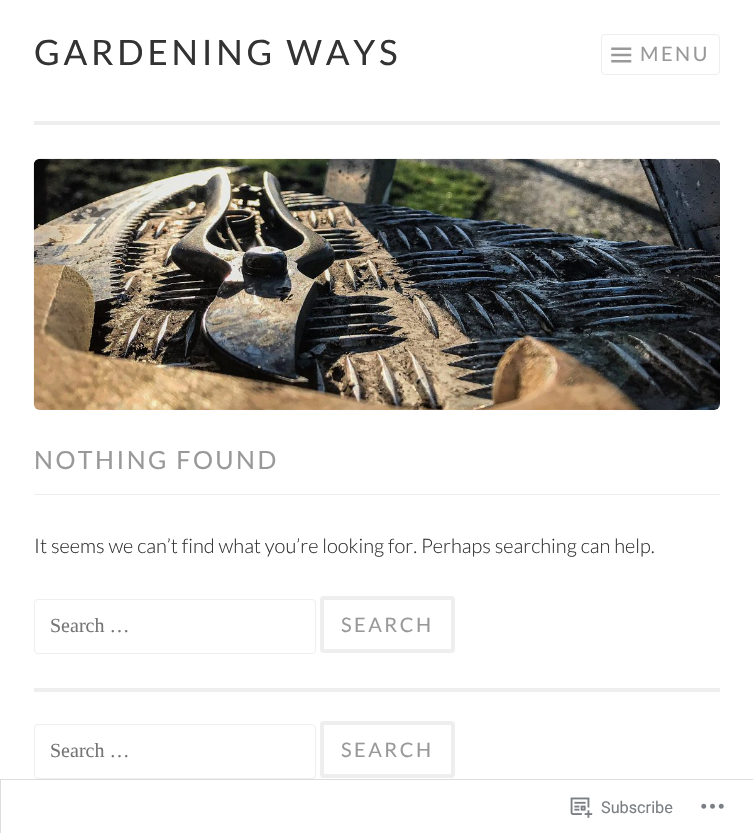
void draw(SkCanvas* canvas) {
	SkPaint fill;
	fill.setAntiAlias(true);
	auto makeFont = [&](const char* family, int weight, float size, bool italic = false) {
		SkFontStyle style(weight, SkFontStyle::kNormal_Width,
			italic ? SkFontStyle::kItalic_Slant : SkFontStyle::kUpright_Slant);
		SkFont result(fontMgr->matchFamilyStyle(family, style), size);
		result.setSubpixel(true);
		return result;
	};
	auto text = [&](const char* s, float x, float y, const SkFont& font) {
		canvas->drawString(s, x, y, font, fill);
	};
	auto spacedText = [&](const char* s, float x, float y, const SkFont& font, const SkPaint& ink, float letter, float word) {
		std::vector<SkGlyphID> glyphs(font.countText(s, strlen(s), SkTextEncoding::kUTF8));
		std::vector<float> xs(glyphs.size());
		font.textToGlyphs(s, strlen(s), SkTextEncoding::kUTF8, glyphs);
		font.getXPos(glyphs, xs, x);
		float extra = 0;
		for (size_t i = 0; i < glyphs.size(); i++) {
			xs[i] += extra;
			extra += letter + word * (glyphs[i] == font.unicharToGlyph(' '));
		}
		canvas->drawTextBlob(SkTextBlob::MakeFromPosHGlyphs(glyphs, xs, y, font), 0, 0, ink);
	};
	auto box = [&](float l, float t, float r, float b) {
		canvas->drawRect(SkRect::MakeLTRB(l, t, r, b), fill);
	};
	auto picture = [&](const char* path, float l, float t, float r, float b) {
		auto image = SkImages::DeferredFromEncodedData(SkData::MakeFromFileName(path));
		canvas->drawImageRect(image, SkRect::MakeLTRB(l, t, r, b), SkSamplingOptions());
	};
	canvas->clear(0xFFFFFFFF);
	fill.setColor(0xFFEEEEEE);
	box(34, 121, 720, 125);
	fill.setStyle(SkPaint::kStroke_Style);
	fill.setStrokeWidth(1);
	canvas->drawRoundRect(SkRect::MakeLTRB(601.5f, 34.5f, 719.5f, 74.5f), 3.5f, 3.5f, fill);
	picture("image0.png", 611, 47, 632, 63);
	picture("image1.png", 33, 158, 720, 410);
	fill.setStyle(SkPaint::kFill_Style);
	box(34, 494, 720, 495);
	fill.setStyle(SkPaint::kStroke_Style);
	canvas->drawRoundRect(SkRect::MakeLTRB(34.5f, 599.5f, 315.5f, 653.5f), 3.5f, 3.5f, fill);
	fill.setStrokeWidth(4);
	canvas->drawRoundRect(SkRect::MakeLTRB(322, 598, 453, 651), 2, 2, fill);
	fill.setStyle(SkPaint::kFill_Style);
	box(34, 688, 720, 692);
	fill.setStyle(SkPaint::kStroke_Style);
	fill.setStrokeWidth(1);
	canvas->drawRoundRect(SkRect::MakeLTRB(34.5f, 724.5f, 315.5f, 778.5f), 3.5f, 3.5f, fill);
	fill.setStrokeWidth(4);
	canvas->drawRoundRect(SkRect::MakeLTRB(322, 723, 453, 776), 2, 2, fill);
	fill.setStrokeWidth(1);
	fill.setColor(0xFFDDDDDF);
	canvas->drawRect(SkRect::MakeLTRB(0.5f, 779.5f, 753.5f, 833.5f), fill);
	picture("image2.png", 570, 797, 593, 818);
	picture("image3.png", 701, 803, 724, 809);
	auto font1 = makeFont("Lato", 400, 35);
	fill.setStyle(SkPaint::kFill_Style);
	fill.setColor(0xFF333333);
	spacedText("GARDENING WAYS", 34, 65, font1, fill, 3.75f, 0);
	auto font2 = makeFont("Lato", 400, 20);
	fill.setColor(0xFF999999);
	spacedText("MENU", 640, 61, font2, fill, 2.5f, 0);
	auto font3 = makeFont("Lato", 400, 25);
	spacedText("NOTHING FOUND", 34, 469, font3, fill, 2.5f, 0);
	auto font4 = makeFont("Lato", 300, 20);
	fill.setColor(0xFF333333);
	text("It seems we can’t find what you’re looking for. Perhaps searching can help.", 34, 553, font4);
	auto font5 = makeFont("Liberation Serif", 400, 20);
	fill.setColor(0xFF757575);
	text("Search …", 50, 632, font5);
	fill.setColor(0xFF999999);
	spacedText("SEARCH", 341, 632, font2, fill, 2.5f, 0);
	fill.setColor(0xFF757575);
	text("Search …", 50, 757, font5);
	fill.setColor(0xFF999999);
	spacedText("SEARCH", 341, 757, font2, fill, 2.5f, 0);
	auto font6 = makeFont("Roboto", 400, 16.25f);
	fill.setColor(0xFF7B7F84);
	text("Subscribe", 601, 813, font6);
}
